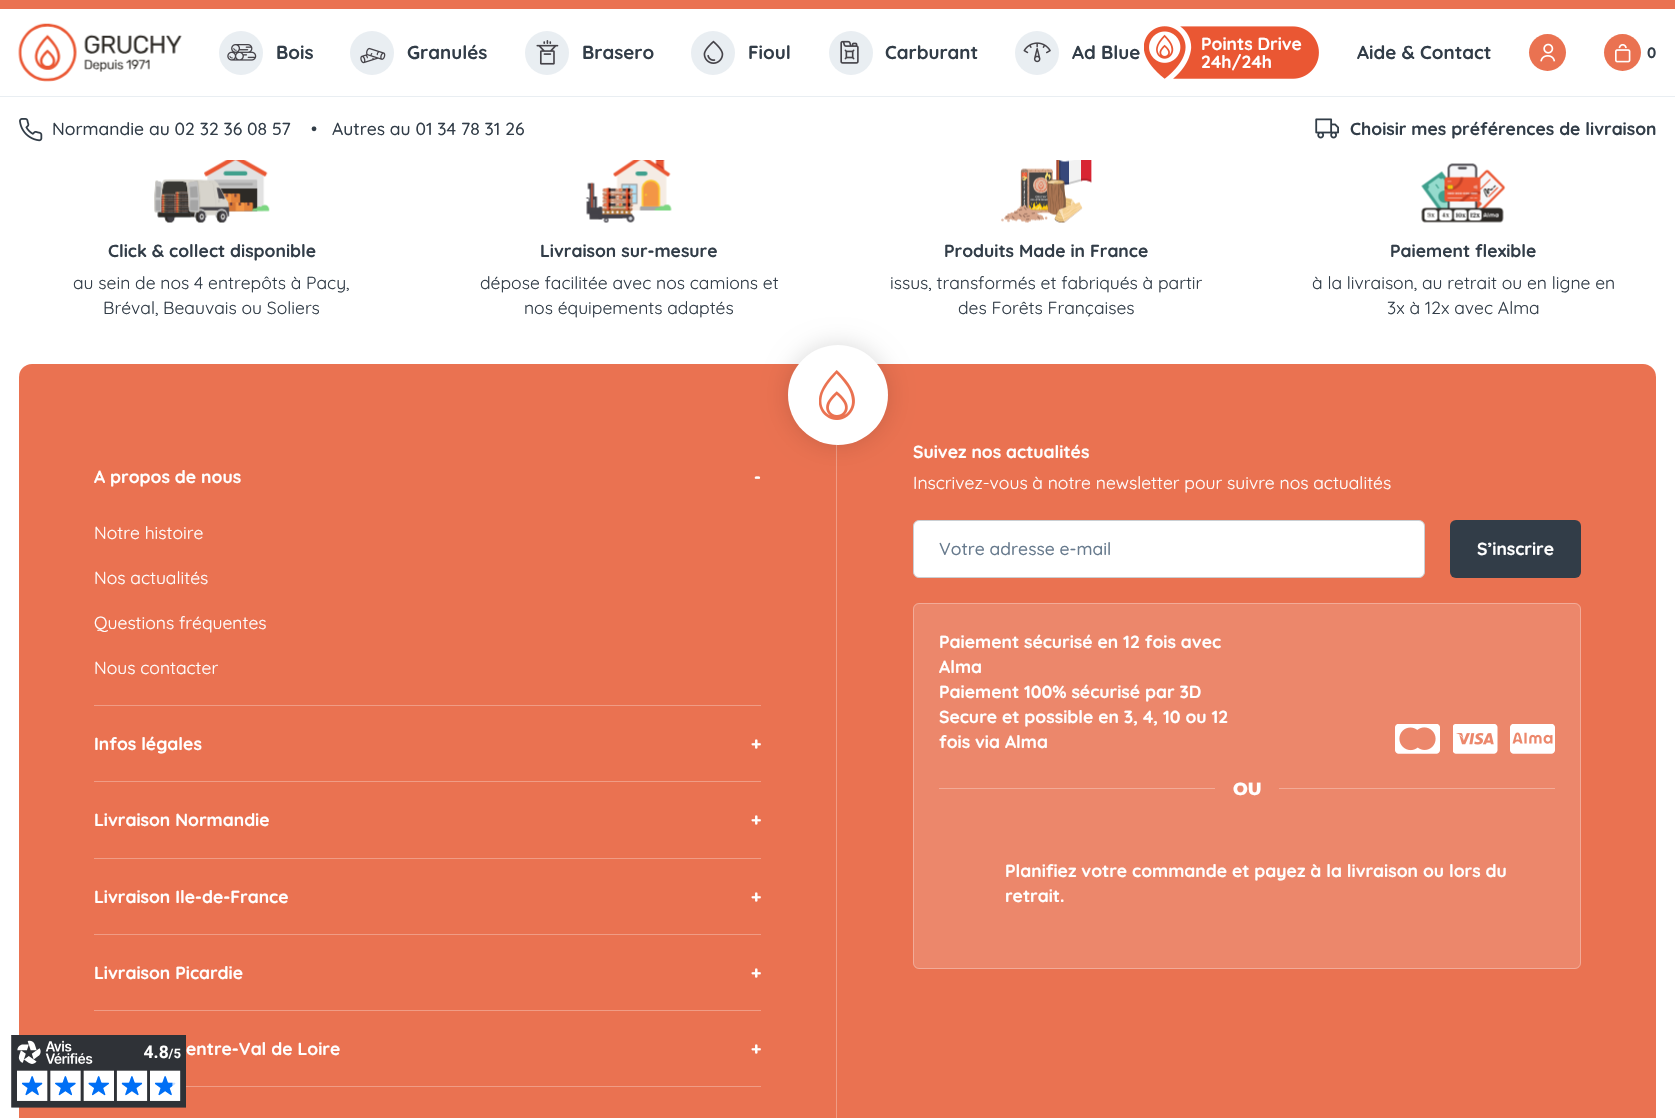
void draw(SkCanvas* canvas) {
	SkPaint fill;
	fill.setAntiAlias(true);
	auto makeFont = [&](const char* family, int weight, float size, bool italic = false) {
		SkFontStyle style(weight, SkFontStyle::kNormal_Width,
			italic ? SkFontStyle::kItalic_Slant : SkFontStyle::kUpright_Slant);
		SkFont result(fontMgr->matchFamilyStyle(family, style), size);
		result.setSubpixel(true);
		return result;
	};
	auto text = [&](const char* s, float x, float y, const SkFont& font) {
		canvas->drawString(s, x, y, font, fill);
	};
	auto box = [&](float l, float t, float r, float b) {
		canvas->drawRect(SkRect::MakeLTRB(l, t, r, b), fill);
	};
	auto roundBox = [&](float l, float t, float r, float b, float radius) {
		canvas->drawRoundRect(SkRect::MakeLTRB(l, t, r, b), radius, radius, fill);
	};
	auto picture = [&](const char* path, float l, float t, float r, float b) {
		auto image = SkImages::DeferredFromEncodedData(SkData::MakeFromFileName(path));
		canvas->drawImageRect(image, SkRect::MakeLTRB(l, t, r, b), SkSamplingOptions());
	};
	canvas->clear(0xFFFFFFFF);
	fill.setColor(0xFFEA7251);
	box(0, 0, 1675, 9);
	fill.setColor(0xFFE9EEF2);
	box(0, 96, 1675, 97);
	picture("image0.png", 18, 23, 182, 82);
	canvas->drawCircle(241, 53, 22, fill);
	picture("image1.png", 227, 44, 257, 61);
	canvas->drawCircle(372, 53, 22, fill);
	picture("image2.png", 360, 47, 386, 64);
	canvas->drawCircle(547, 53, 22, fill);
	picture("image3.png", 536, 40, 559, 65);
	canvas->drawCircle(713, 53, 22, fill);
	picture("image4.png", 703, 40, 724, 64);
	canvas->drawCircle(851, 53, 22, fill);
	picture("image5.png", 840, 40, 859, 64);
	canvas->drawCircle(1037, 53, 22, fill);
	picture("image6.png", 1023, 42, 1051, 63);
	picture("image7.png", 1144, 26, 1319, 79);
	fill.setColor(0xFFEA7251);
	canvas->drawCircle(1547.5f, 52.5f, 18.5f, fill);
	picture("image8.png", 1540, 43, 1556, 62);
	canvas->drawCircle(1622.5f, 52.5f, 18.5f, fill);
	picture("image9.png", 1615, 44, 1631, 63);
	picture("image10.png", 19, 118, 43, 142);
	picture("image11.png", 1315, 118, 1339, 139);
	picture("image12.png", 154, 160, 270, 223);
	picture("image13.png", 585, 160, 672, 223);
	picture("image14.png", 1001, 160, 1092, 223);
	picture("image15.png", 1421, 163, 1506, 223);
	roundBox(19, 364, 1656, 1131, 13);
	fill.setColor(0xFFF09C85);
	box(836, 444, 837, 1118);
	fill.setColor(0x26000000);
	fill.setMaskFilter(SkMaskFilter::MakeBlur(kNormal_SkBlurStyle, 12.5f));
	canvas->drawRoundRect(SkRect::MakeLTRB(788, 345, 888, 445), 50, 50, fill);
	fill.setMaskFilter(nullptr);
	fill.setColor(0xFFFFFFFF);
	canvas->drawCircle(838, 395, 50, fill);
	picture("image16.png", 819, 370, 855, 420);
	fill.setColor(0xFFF09C85);
	box(94, 705, 761, 706);
	box(94, 781, 761, 782);
	box(94, 858, 761, 859);
	box(94, 934, 761, 935);
	box(94, 1010, 761, 1011);
	box(186, 1086, 761, 1087);
	fill.setColor(0xFFFFFFFF);
	canvas->drawRoundRect(SkRect::MakeLTRB(913.5f, 520.5f, 1424.5f, 577.5f), 5.5f, 5.5f, fill);
	fill.setStyle(SkPaint::kStroke_Style);
	fill.setStrokeWidth(1);
	fill.setColor(0xFFCACFD3);
	canvas->drawRoundRect(SkRect::MakeLTRB(913.5f, 520.5f, 1424.5f, 577.5f), 5.5f, 5.5f, fill);
	fill.setStyle(SkPaint::kFill_Style);
	fill.setColor(0xFF323D48);
	roundBox(1450, 520, 1581, 578, 6);
	fill.setColor(0xFFEC876B);
	roundBox(913, 603, 1581, 969, 6);
	fill.setStyle(SkPaint::kStroke_Style);
	fill.setColor(0x4DFFFFFF);
	canvas->drawRoundRect(SkRect::MakeLTRB(913.5f, 603.5f, 1580.5f, 968.5f), 5.5f, 5.5f, fill);
	picture("image17.png", 1395, 724, 1440, 754);
	picture("image18.png", 1453, 724, 1498, 754);
	picture("image19.png", 1510, 724, 1555, 754);
	fill.setStyle(SkPaint::kFill_Style);
	fill.setColor(0xFFF2AB97);
	box(939, 788, 1215, 789);
	box(1279, 788, 1555, 789);
	picture("image20.png", 11, 1035, 186, 1108);
	auto font1 = makeFont("Quicksand", 700, 18.75f);
	fill.setColor(0xFF323D48);
	text("Bois", 276, 59, font1);
	text("Granulés", 407, 59, font1);
	text("Brasero", 582, 59, font1);
	text("Fioul", 748, 59, font1);
	text("Carburant", 885, 59, font1);
	text("Ad Blue", 1072, 59, font1);
	auto font2 = makeFont("Quicksand", 700, 17.5f);
	fill.setColor(0xFFFFFFFF);
	text("Points Drive", 1201, 50, font2);
	text("24h/24h", 1201, 68, font2);
	fill.setColor(0xFF323D48);
	text("Aide & Contact", 1357, 59, font1);
	auto font3 = makeFont("Quicksand", 700, 15);
	text("0", 1647, 58, font3);
	auto font4 = makeFont("Quicksand", 500, 17.5f);
	text("Normandie au 02 32 36 08 57", 52, 135, font4);
	text("•", 311, 135, font4);
	text("Autres au 01 34 78 31 26", 332, 135, font4);
	text("Choisir mes préférences de livraison", 1350, 135, font2);
	text("Click & collect disponible", 108, 257, font2);
	auto font5 = makeFont("Quicksand", 400, 17.5f);
	text("au sein de nos 4 entrepôts à Pacy,", 73, 289, font5);
	text("Bréval, Beauvais ou Soliers", 103, 314, font5);
	text("Livraison sur-mesure", 540, 257, font2);
	text("dépose facilitée avec nos camions et", 480, 289, font5);
	text("nos équipements adaptés", 524, 314, font5);
	text("Produits Made in France", 944, 257, font2);
	text("issus, transformés et fabriqués à partir", 890, 289, font5);
	text("des Forêts Françaises", 958, 314, font5);
	text("Paiement flexible", 1390, 257, font2);
	text("à la livraison, au retrait ou en ligne en", 1312, 289, font5);
	text("3x à 12x avec Alma", 1387, 314, font5);
	fill.setColor(0xFFFFFFFF);
	text("A propos de nous", 94, 483, font2);
	text("-", 754, 483, font2);
	text("Notre histoire", 94, 539, font5);
	text("Nos actualités", 94, 584, font5);
	text("Questions fréquentes", 94, 629, font5);
	text("Nous contacter", 94, 674, font5);
	text("Infos légales", 94, 750, font2);
	text("+", 751, 750, font2);
	text("Livraison Normandie", 94, 826, font2);
	text("+", 751, 826, font2);
	text("Livraison Ile-de-France", 94, 903, font2);
	text("+", 751, 903, font2);
	text("Livraison Picardie", 94, 979, font2);
	text("+", 751, 979, font2);
	text("entre-Val de Loire", 186, 1055, font2);
	text("+", 751, 1055, font2);
	text("Suivez nos actualités", 913, 458, font2);
	text("Inscrivez-vous à notre newsletter pour suivre nos actualités", 913, 489, font5);
	fill.setColor(0xFF677A8D);
	text("Votre adresse e-mail", 939, 555, font4);
	fill.setColor(0xFFFFFFFF);
	text("S’inscrire", 1477, 555, font2);
	text("Paiement sécurisé en 12 fois avec", 939, 648, font2);
	text("Alma", 939, 673, font2);
	text("Paiement 100% sécurisé par 3D", 939, 698, font2);
	text("Secure et possible en 3, 4, 10 ou 12", 939, 723, font2);
	text("fois via Alma", 939, 748, font2);
	auto font6 = makeFont("Montserrat", 800, 17.5f);
	text("OU", 1233, 795, font6);
	text("Planifiez votre commande et payez à la livraison ou lors du", 1005, 877, font2);
	text("retrait.", 1005, 902, font2);
}
